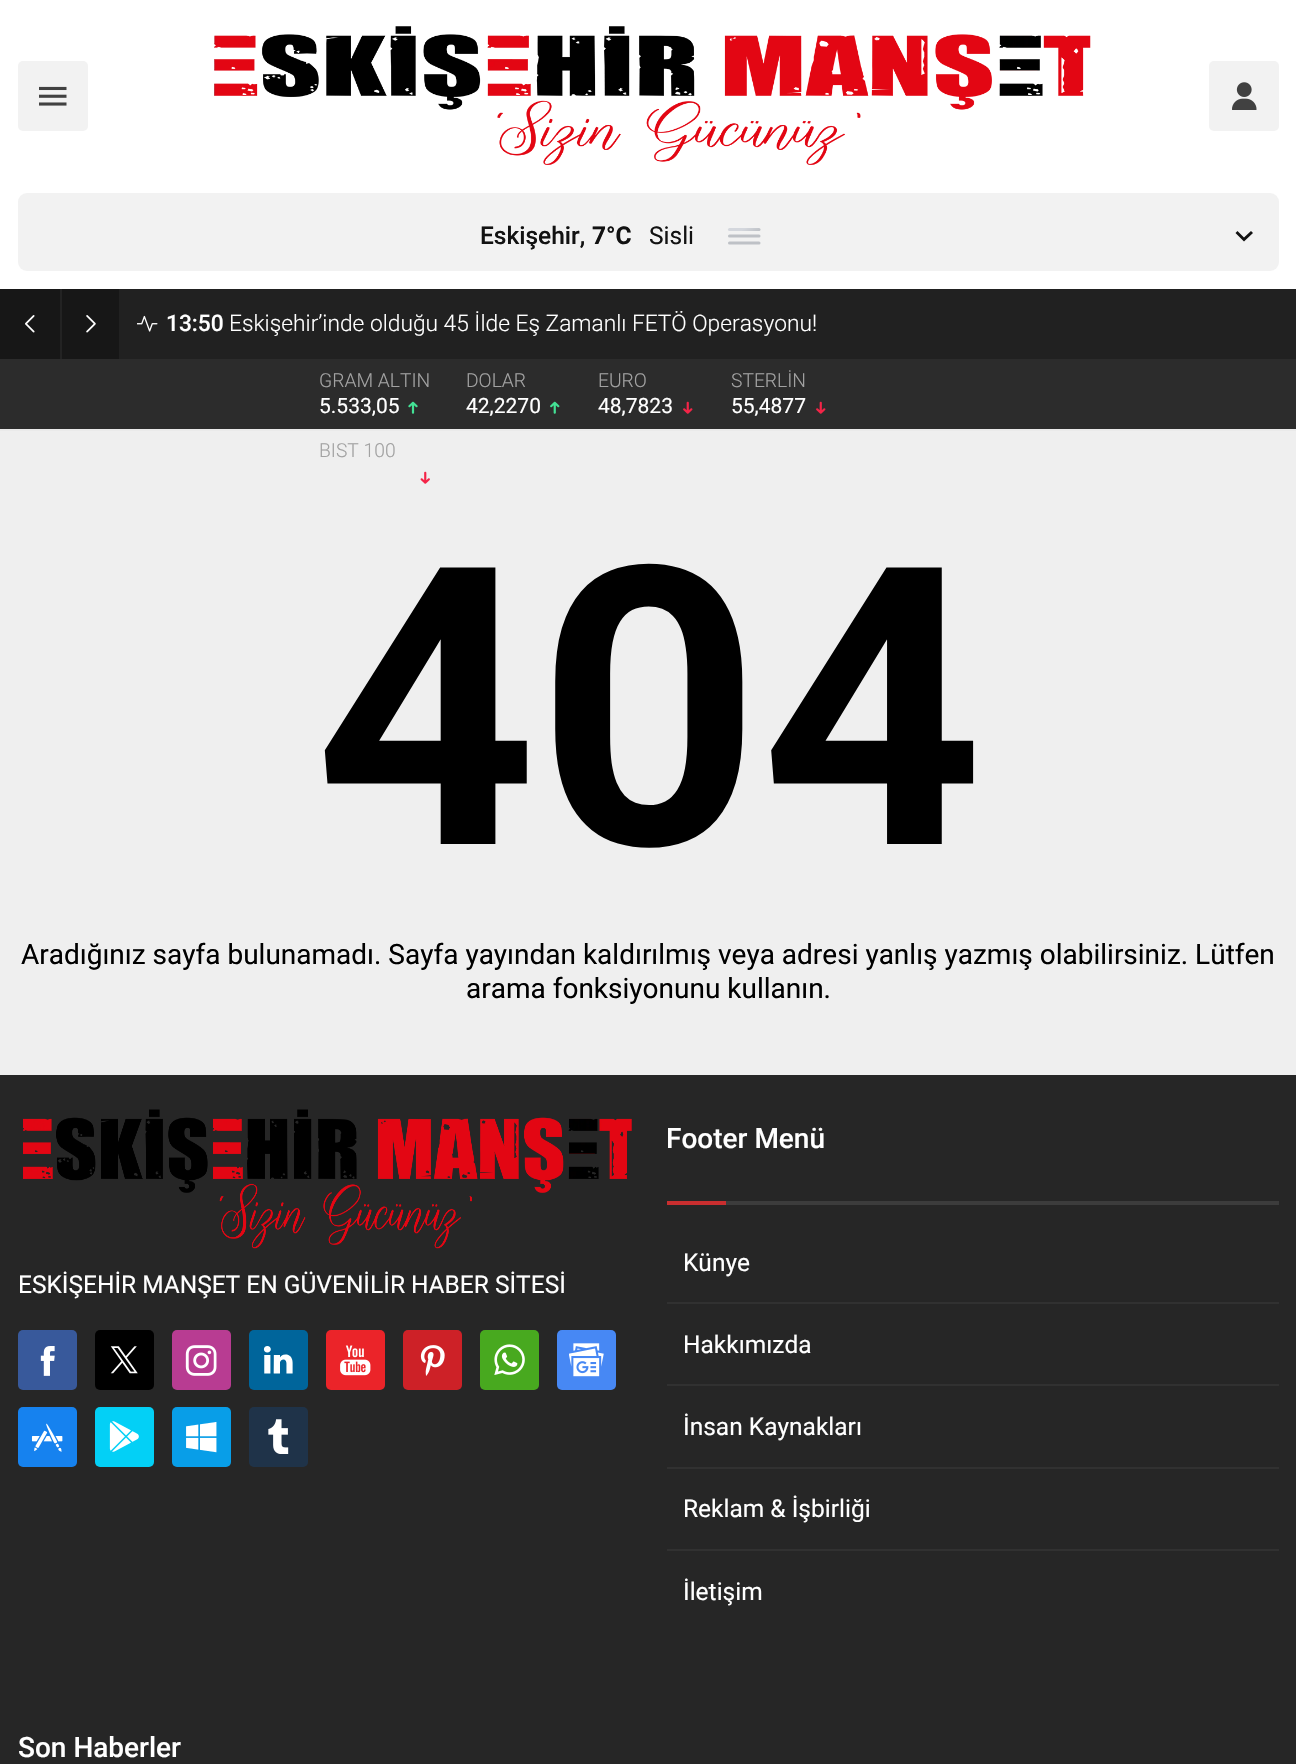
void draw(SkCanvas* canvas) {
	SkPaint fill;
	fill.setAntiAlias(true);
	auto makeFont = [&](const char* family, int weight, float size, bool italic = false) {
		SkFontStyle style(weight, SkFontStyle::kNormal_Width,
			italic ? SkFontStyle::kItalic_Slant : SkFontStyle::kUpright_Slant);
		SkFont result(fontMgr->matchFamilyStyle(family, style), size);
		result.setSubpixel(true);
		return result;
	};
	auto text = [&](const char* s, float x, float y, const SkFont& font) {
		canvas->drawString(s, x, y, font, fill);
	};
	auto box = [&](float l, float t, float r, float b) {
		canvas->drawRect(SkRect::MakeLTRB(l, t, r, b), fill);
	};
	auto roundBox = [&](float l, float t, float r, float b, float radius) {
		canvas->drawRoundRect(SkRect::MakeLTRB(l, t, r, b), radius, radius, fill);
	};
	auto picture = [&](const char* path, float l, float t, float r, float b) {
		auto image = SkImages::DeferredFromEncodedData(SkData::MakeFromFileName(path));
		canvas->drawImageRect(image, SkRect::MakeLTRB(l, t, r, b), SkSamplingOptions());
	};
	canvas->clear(0xFFEFEFEF);
	fill.setColor(0xFFEAEAEA);
	box(0, 429, 1296, 431);
	fill.setColor(0xFFFFFFFF);
	box(0, 0, 1296, 289);
	fill.setColor(0xFFF2F2F2);
	roundBox(18, 61, 88, 131, 5);
	picture("image0.png", 39, 86, 67, 106);
	picture("image1.png", 214, 26, 1091, 165);
	roundBox(1209, 61, 1279, 131, 5);
	picture("image2.png", 1232, 82, 1257, 110);
	roundBox(18, 193, 1279, 271, 9);
	fill.setStyle(SkPaint::kStroke_Style);
	fill.setStrokeWidth(3);
	fill.setStrokeCap(SkPaint::kRound_Cap);
	{
		const SkColor colors[] = {0xFFD4D7DD, 0xFFD4D7DD, 0xFFBEC1C6};
		const float stops[] = {0, 0.45f, 1};
		const SkPoint ends[] = {{740, 222}, {749, 237}};
		fill.setShader(SkGradientShader::MakeLinear(ends, colors, stops, 3, SkTileMode::kClamp));
		fill.setAlpha(255);
	}
	canvas->drawPath(SkPathBuilder().moveTo(729.5f, 229.5f).lineTo(759, 229.5f).detach(), fill);
	fill.setShader(nullptr);
	fill.setColor(0xFFBEC1C6);
	canvas->drawPath(SkPathBuilder().moveTo(729.5f, 236).lineTo(759, 236).moveTo(729.5f, 243).lineTo(759, 243).detach(), fill);
	fill.setStyle(SkPaint::kFill_Style);
	fill.setColor(0xFF121212);
	canvas->drawPath(SkPathBuilder().moveTo(1251, 231).lineTo(1244, 237.5f).lineTo(1237.5f, 231).lineTo(1235.5f, 233).lineTo(1244, 241.5f).lineTo(1253, 233).close().detach(), fill);
	fill.setColor(0xFF212121);
	box(119, 289, 1296, 359);
	fill.setColor(0xFF171717);
	box(0, 289, 119, 359);
	picture("image3.png", 25, 315, 35, 333);
	fill.setColor(0xFF232323);
	box(60, 289, 62, 359);
	picture("image4.png", 86, 315, 96, 333);
	picture("image5.png", 137, 315, 158, 332);
	fill.setColor(0xFF2C2C2C);
	box(0, 359, 1296, 429);
	picture("image6.png", 408, 401, 418, 414);
	picture("image7.png", 550, 401, 560, 414);
	picture("image8.png", 683, 401, 693, 414);
	picture("image8.png", 816, 401, 826, 414);
	picture("image9.png", 420, 471, 430, 484);
	fill.setColor(0xFF262626);
	box(0, 1075, 1296, 1764);
	picture("image10.png", 23, 1109, 632, 1249);
	fill.setColor(0xFF38599B);
	roundBox(18, 1330, 77, 1390, 5);
	picture("image11.png", 40, 1346, 55, 1376);
	fill.setColor(0xFF000000);
	roundBox(95, 1330, 154, 1390, 5);
	picture("image12.png", 110, 1346, 138, 1374);
	fill.setColor(0xFFB83C92);
	roundBox(172, 1330, 231, 1390, 5);
	picture("image13.png", 185, 1345, 217, 1376);
	fill.setColor(0xFF00659B);
	roundBox(249, 1330, 308, 1390, 5);
	picture("image14.png", 263, 1346, 293, 1374);
	fill.setColor(0xFFEB2429);
	roundBox(326, 1330, 385, 1390, 5);
	picture("image15.png", 340, 1345, 371, 1376);
	fill.setColor(0xFFCD2127);
	roundBox(403, 1330, 462, 1390, 5);
	picture("image16.png", 420, 1345, 445, 1376);
	fill.setColor(0xFF48A91F);
	roundBox(480, 1330, 539, 1390, 5);
	picture("image17.png", 494, 1344, 525, 1375);
	fill.setColor(0xFF4788F4);
	roundBox(557, 1330, 616, 1390, 5);
	picture("image18.png", 569, 1343, 604, 1377);
	fill.setColor(0xFF1682EF);
	roundBox(18, 1407, 77, 1467, 5);
	picture("image19.png", 31, 1423, 63, 1452);
	fill.setColor(0xFF03D0F6);
	roundBox(95, 1407, 154, 1467, 5);
	picture("image20.png", 109, 1421, 139, 1452);
	fill.setColor(0xFF089EE8);
	roundBox(172, 1407, 231, 1467, 5);
	picture("image21.png", 186, 1421, 217, 1453);
	fill.setColor(0xFF1F3349);
	roundBox(249, 1407, 308, 1467, 5);
	picture("image22.png", 268, 1419, 289, 1454);
	fill.setColor(0xFF3C3C3C);
	box(726, 1201, 1279, 1205);
	fill.setColor(0xFFC92E2F);
	box(667, 1201, 726, 1205);
	fill.setColor(0xFF313131);
	box(667, 1302, 1279, 1304);
	box(667, 1384, 1279, 1386);
	box(667, 1467, 1279, 1469);
	box(667, 1549, 1279, 1551);
	auto font1 = makeFont("Roboto", 500, 24.5f);
	fill.setColor(0xFF121212);
	text("Eskişehir,", 480, 244, font1);
	auto font2 = makeFont("Roboto", 700, 24.5f);
	text("7°C", 592, 244, font2);
	auto font3 = makeFont("Roboto", 400, 24.5f);
	text("Sisli", 649, 244, font3);
	auto font4 = makeFont("Roboto", 500, 22.75f);
	fill.setColor(0xFFFFFFFF);
	text("13:50", 166, 331, font4);
	auto font5 = makeFont("Roboto", 300, 22.75f);
	text("Eskişehir’inde olduğu 45 İlde Eş Zamanlı FETÖ Operasyonu!", 229, 331, font5);
	auto font6 = makeFont("Roboto", 300, 19.25f);
	fill.setColor(0xFFA2A2A2);
	text("GRAM ALTIN", 319, 387, font6);
	auto font7 = makeFont("Roboto", 400, 21);
	fill.setColor(0xFFFFFFFF);
	text("5.533,05", 319, 413, font7);
	fill.setColor(0xFFA2A2A2);
	text("DOLAR", 466, 387, font6);
	fill.setColor(0xFFFFFFFF);
	text("42,2270", 466, 413, font7);
	fill.setColor(0xFFA2A2A2);
	text("EURO", 598, 387, font6);
	fill.setColor(0xFFFFFFFF);
	text("48,7823", 598, 413, font7);
	fill.setColor(0xFFA2A2A2);
	text("STERLİN", 731, 387, font6);
	fill.setColor(0xFFFFFFFF);
	text("55,4877", 731, 413, font7);
	fill.setColor(0xFFA2A2A2);
	text("BIST 100", 319, 457, font6);
	auto font8 = makeFont("Roboto", 700, 389);
	fill.setColor(0xFF000000);
	text("404", 314, 844, font8);
	auto font9 = makeFont("Roboto", 400, 28);
	text("Aradığınız sayfa bulunamadı. Sayfa yayından kaldırılmış veya adresi yanlış yazmış olabilirsiniz. Lütfen", 21, 964, font9);
	text("arama fonksiyonunu kullanın.", 466, 998, font9);
	fill.setColor(0xFFFFFFFF);
	text("ESKİŞEHİR MANŞET EN GÜVENİLİR HABER SİTESİ", 18, 1293, font3);
	auto font10 = makeFont("Roboto", 500, 28);
	text("Footer Menü", 666, 1148, font10);
	text("Künye", 683, 1271, font3);
	text("Hakkımızda", 683, 1353, font3);
	text("İnsan Kaynakları", 683, 1435, font3);
	text("Reklam & İşbirliği", 683, 1517, font3);
	text("İletişim", 683, 1600, font3);
	text("Son Haberler", 18, 1757, font10);
}
